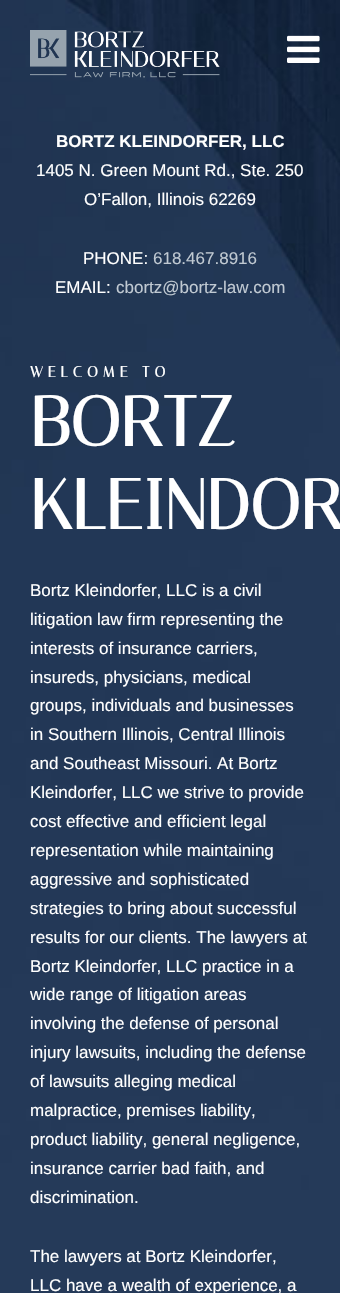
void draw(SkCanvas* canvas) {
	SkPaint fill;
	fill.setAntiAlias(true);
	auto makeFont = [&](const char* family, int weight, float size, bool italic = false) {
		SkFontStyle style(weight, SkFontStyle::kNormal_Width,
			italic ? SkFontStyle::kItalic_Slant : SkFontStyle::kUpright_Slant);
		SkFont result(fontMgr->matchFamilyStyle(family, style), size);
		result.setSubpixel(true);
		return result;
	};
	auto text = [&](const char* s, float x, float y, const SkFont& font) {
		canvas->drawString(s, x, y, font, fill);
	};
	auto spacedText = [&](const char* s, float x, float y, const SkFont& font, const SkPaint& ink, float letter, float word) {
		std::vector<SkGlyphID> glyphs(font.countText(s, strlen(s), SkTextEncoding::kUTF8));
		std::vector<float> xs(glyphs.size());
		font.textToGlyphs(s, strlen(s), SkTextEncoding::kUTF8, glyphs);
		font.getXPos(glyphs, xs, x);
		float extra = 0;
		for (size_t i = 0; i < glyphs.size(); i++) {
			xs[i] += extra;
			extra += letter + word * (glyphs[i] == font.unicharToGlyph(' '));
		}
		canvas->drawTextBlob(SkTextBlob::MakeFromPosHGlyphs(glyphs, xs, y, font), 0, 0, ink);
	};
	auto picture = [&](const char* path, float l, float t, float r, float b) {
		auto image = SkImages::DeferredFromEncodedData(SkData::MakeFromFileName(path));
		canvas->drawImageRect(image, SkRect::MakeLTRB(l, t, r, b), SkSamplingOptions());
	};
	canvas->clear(0xFFFFFFFF);
	picture("image0.png", 0, 0, 340, 1293);
	picture("image1.png", 30, 30, 220, 78);
	picture("image2.png", 287, 35, 320, 63);
	auto font1 = makeFont("Liberation Sans", 700, 17);
	fill.setColor(0xFFFFFFFF);
	text("BORTZ KLEINDORFER, LLC", 56, 147, font1);
	auto font2 = makeFont("Liberation Sans", 400, 17);
	text("1405 N. Green Mount Rd., Ste. 250", 36, 176, font2);
	text("O’Fallon, Illinois 62269", 84, 205, font2);
	text("PHONE:", 83, 264, font2);
	fill.setColor(0xFFC0C9D2);
	text("618.467.8916", 153, 264, font2);
	fill.setColor(0xFFFFFFFF);
	text("EMAIL:", 55, 293, font2);
	fill.setColor(0xFFC0C9D2);
	text("cbortz@bortz-law.com", 116, 293, font2);
	auto font3 = makeFont("Italiana", 700, 15);
	fill.setColor(0xFFFFFFFF);
	spacedText("WELCOME TO", 30, 377, font3, fill, 5, 0);
	auto font4 = makeFont("Italiana", 700, 70);
	text("BORTZ", 30, 446, font4);
	text("KLEINDOR", 30, 529, font4);
	text("Bortz Kleindorfer, LLC is a civil", 30, 596, font2);
	text("litigation law firm representing the", 30, 625, font2);
	text("interests of insurance carriers,", 30, 654, font2);
	text("insureds, physicians, medical", 30, 683, font2);
	text("groups, individuals and businesses", 30, 711, font2);
	text("in Southern Illinois, Central Illinois", 30, 740, font2);
	text("and Southeast Missouri. At Bortz", 30, 769, font2);
	text("Kleindorfer, LLC we strive to provide", 30, 798, font2);
	text("cost effective and efficient legal", 30, 827, font2);
	text("representation while maintaining", 30, 856, font2);
	text("aggressive and sophisticated", 30, 885, font2);
	text("strategies to bring about successful", 30, 914, font2);
	text("results for our clients. The lawyers at", 30, 943, font2);
	text("Bortz Kleindorfer, LLC practice in a", 30, 972, font2);
	text("wide range of litigation areas", 30, 1000, font2);
	text("involving the defense of personal", 30, 1029, font2);
	text("injury lawsuits, including the defense", 30, 1058, font2);
	text("of lawsuits alleging medical", 30, 1087, font2);
	text("malpractice, premises liability,", 30, 1116, font2);
	text("product liability, general negligence,", 30, 1145, font2);
	text("insurance carrier bad faith, and", 30, 1174, font2);
	text("discrimination.", 30, 1203, font2);
	text("The lawyers at Bortz Kleindorfer,", 30, 1262, font2);
	text("LLC have a wealth of experience, a", 30, 1291, font2);
}
